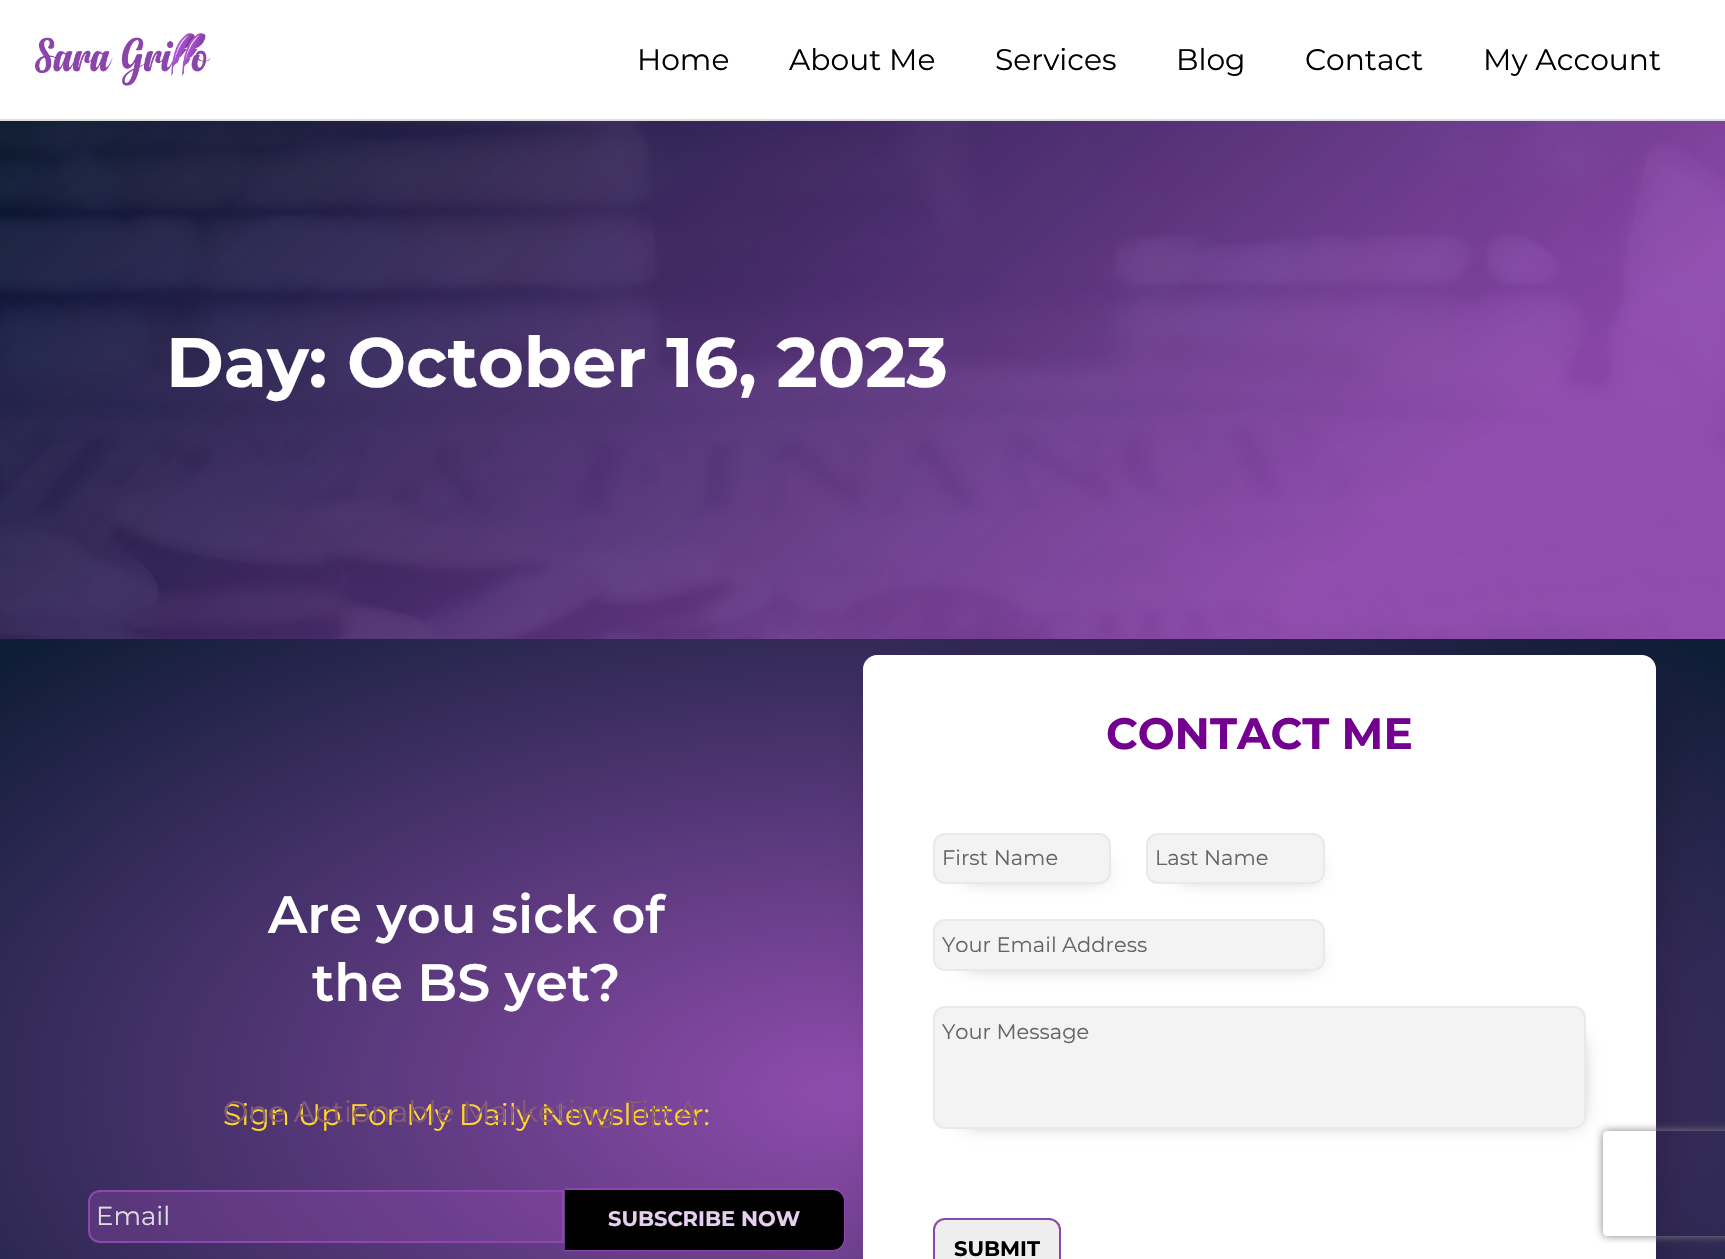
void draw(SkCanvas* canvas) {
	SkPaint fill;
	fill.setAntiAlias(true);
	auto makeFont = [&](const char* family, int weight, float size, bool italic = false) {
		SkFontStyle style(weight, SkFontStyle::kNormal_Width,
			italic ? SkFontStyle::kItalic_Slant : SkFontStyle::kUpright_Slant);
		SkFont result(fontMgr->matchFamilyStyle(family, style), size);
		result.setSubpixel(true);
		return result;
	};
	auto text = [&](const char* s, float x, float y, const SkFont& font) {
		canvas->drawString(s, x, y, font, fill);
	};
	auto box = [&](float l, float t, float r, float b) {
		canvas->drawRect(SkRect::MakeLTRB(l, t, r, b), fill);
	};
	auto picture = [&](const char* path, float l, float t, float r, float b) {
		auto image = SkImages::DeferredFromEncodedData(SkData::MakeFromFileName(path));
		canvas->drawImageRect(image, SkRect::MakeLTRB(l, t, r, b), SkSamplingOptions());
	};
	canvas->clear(0xFFFFFFFF);
	fill.setColor(0xFFDDDDDD);
	box(0, 119, 1725, 121);
	picture("image0.png", 35, 33, 210, 86);
	picture("image1.png", 0, 121, 1725, 639);
	{
		const SkColor colors[] = {0xF28E47AC, 0xEB000F2B};
		const float stops[] = {0.2f, 1};
		const SkPoint ends[] = {{1347, 957}, {379, -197}};
		fill.setShader(SkGradientShader::MakeLinear(ends, colors, stops, 2, SkTileMode::kClamp));
		fill.setAlpha(255);
	}
	box(0, 121, 1725, 639);
	{
		const SkColor colors[] = {0xFF914DAF, 0xFF0F1D37};
		const float stops[] = {0, 0.97f};
		SkMatrix m = SkMatrix::Translate(863, 1092).preScale(1220, 641);
		fill.setShader(SkGradientShader::MakeRadial({0, 0}, 1, colors, stops, 2, SkTileMode::kClamp, 0, &m));
		fill.setAlpha(255);
	}
	box(0, 639, 1725, 1259);
	fill.setShader(nullptr);
	fill.setColor(0x598E47AC);
	canvas->drawPath(SkPathBuilder().moveTo(100, 1191).lineTo(563, 1191).lineTo(563, 1242).lineTo(100, 1242).cubicTo(94, 1242, 89, 1237, 89, 1231).lineTo(89, 1202).cubicTo(89, 1196, 94, 1191, 100, 1191).close().detach(), fill);
	fill.setStyle(SkPaint::kStroke_Style);
	fill.setStrokeWidth(2);
	fill.setColor(0xFF8E47AC);
	canvas->drawPath(SkPathBuilder().moveTo(100, 1191).lineTo(563, 1191).lineTo(563, 1242).lineTo(100, 1242).cubicTo(94, 1242, 89, 1237, 89, 1231).lineTo(89, 1202).cubicTo(89, 1196, 94, 1191, 100, 1191).close().detach(), fill);
	fill.setStyle(SkPaint::kFill_Style);
	fill.setColor(0xFF000000);
	canvas->drawPath(SkPathBuilder().moveTo(565, 1190).lineTo(833, 1190).cubicTo(839, 1190, 844, 1195, 844, 1201).lineTo(844, 1239).cubicTo(844, 1245, 839, 1250, 833, 1250).lineTo(565, 1250).close().detach(), fill);
	fill.setColor(0xFF8E47AC);
	canvas->drawPath(SkPathBuilder(SkPathFillType::kEvenOdd).moveTo(565, 1188).lineTo(833, 1188).cubicTo(840, 1188, 845, 1194, 845, 1200).lineTo(845, 1239).cubicTo(845, 1246, 840, 1251, 833, 1251).lineTo(565, 1251).close().moveTo(565, 1190).lineTo(833, 1190).cubicTo(839, 1190, 844, 1195, 844, 1200).lineTo(844, 1239).cubicTo(844, 1245, 839, 1250, 833, 1250).lineTo(565, 1250).close().detach(), fill);
	fill.setColor(0x80000000);
	fill.setMaskFilter(SkMaskFilter::MakeBlur(kNormal_SkBlurStyle, 33));
	canvas->drawRect(SkRect::MakeLTRB(914, 686, 1643, 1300), fill);
	fill.setMaskFilter(nullptr);
	fill.setColor(0xFFFFFFFF);
	canvas->drawPath(SkPathBuilder().moveTo(877, 655).lineTo(1642, 655).cubicTo(1649.5f, 655, 1656, 661.5f, 1656, 669).lineTo(1656, 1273).lineTo(863, 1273).lineTo(863, 669).cubicTo(863, 661.5f, 869.5f, 655, 877, 655).close().detach(), fill);
	canvas->save();
	canvas->clipPath(SkPathBuilder(SkPathFillType::kEvenOdd).moveTo(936, 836).lineTo(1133, 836).lineTo(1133, 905).lineTo(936, 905).close().moveTo(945, 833).lineTo(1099, 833).cubicTo(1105.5f, 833, 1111, 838.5f, 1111, 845).lineTo(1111, 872).cubicTo(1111, 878.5f, 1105.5f, 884, 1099, 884).lineTo(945, 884).cubicTo(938.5f, 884, 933, 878.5f, 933, 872).lineTo(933, 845).cubicTo(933, 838.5f, 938.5f, 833, 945, 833).close().detach(), true);
	fill.setColor(0x80000000);
	fill.setMaskFilter(SkMaskFilter::MakeBlur(kNormal_SkBlurStyle, 9.5f));
	canvas->drawRect(SkRect::MakeLTRB(966, 866, 1103, 875), fill);
	fill.setMaskFilter(nullptr);
	canvas->restore();
	fill.setColor(0x59DDDDDD);
	canvas->drawRoundRect(SkRect::MakeLTRB(934, 834, 1110, 883), 11, 11, fill);
	fill.setStyle(SkPaint::kStroke_Style);
	fill.setColor(0xFFE9E9E9);
	canvas->drawRoundRect(SkRect::MakeLTRB(934, 834, 1110, 883), 11, 11, fill);
	canvas->save();
	canvas->clipPath(SkPathBuilder(SkPathFillType::kEvenOdd).moveTo(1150, 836).lineTo(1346, 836).lineTo(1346, 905).lineTo(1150, 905).close().moveTo(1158, 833).lineTo(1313, 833).cubicTo(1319.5f, 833, 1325, 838.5f, 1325, 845).lineTo(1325, 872).cubicTo(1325, 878.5f, 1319.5f, 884, 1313, 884).lineTo(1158, 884).cubicTo(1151.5f, 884, 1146, 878.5f, 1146, 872).lineTo(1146, 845).cubicTo(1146, 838.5f, 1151.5f, 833, 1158, 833).close().detach(), true);
	fill.setStyle(SkPaint::kFill_Style);
	fill.setColor(0x80000000);
	fill.setMaskFilter(SkMaskFilter::MakeBlur(kNormal_SkBlurStyle, 9.5f));
	canvas->drawRect(SkRect::MakeLTRB(1180, 866, 1316, 875), fill);
	fill.setMaskFilter(nullptr);
	canvas->restore();
	fill.setColor(0x59DDDDDD);
	canvas->drawRoundRect(SkRect::MakeLTRB(1147, 834, 1324, 883), 11, 11, fill);
	fill.setStyle(SkPaint::kStroke_Style);
	fill.setColor(0xFFE9E9E9);
	canvas->drawRoundRect(SkRect::MakeLTRB(1147, 834, 1324, 883), 11, 11, fill);
	canvas->save();
	canvas->clipPath(SkPathBuilder(SkPathFillType::kEvenOdd).moveTo(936, 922).lineTo(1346, 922).lineTo(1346, 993).lineTo(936, 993).close().moveTo(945, 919).lineTo(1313, 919).cubicTo(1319.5f, 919, 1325, 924.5f, 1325, 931).lineTo(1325, 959).cubicTo(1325, 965.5f, 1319.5f, 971, 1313, 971).lineTo(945, 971).cubicTo(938.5f, 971, 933, 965.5f, 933, 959).lineTo(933, 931).cubicTo(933, 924.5f, 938.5f, 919, 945, 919).close().detach(), true);
	fill.setStyle(SkPaint::kFill_Style);
	fill.setColor(0x80000000);
	fill.setMaskFilter(SkMaskFilter::MakeBlur(kNormal_SkBlurStyle, 9.5f));
	canvas->drawRect(SkRect::MakeLTRB(966, 952, 1316, 963), fill);
	fill.setMaskFilter(nullptr);
	canvas->restore();
	fill.setColor(0x59DDDDDD);
	canvas->drawRoundRect(SkRect::MakeLTRB(934, 920, 1324, 970), 11, 11, fill);
	fill.setStyle(SkPaint::kStroke_Style);
	fill.setColor(0xFFE9E9E9);
	canvas->drawRoundRect(SkRect::MakeLTRB(934, 920, 1324, 970), 11, 11, fill);
	canvas->save();
	canvas->clipPath(SkPathBuilder(SkPathFillType::kEvenOdd).moveTo(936, 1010).lineTo(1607, 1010).lineTo(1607, 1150).lineTo(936, 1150).close().moveTo(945, 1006).lineTo(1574, 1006).cubicTo(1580.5f, 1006, 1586, 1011.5f, 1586, 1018).lineTo(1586, 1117).cubicTo(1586, 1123.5f, 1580.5f, 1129, 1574, 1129).lineTo(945, 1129).cubicTo(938.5f, 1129, 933, 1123.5f, 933, 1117).lineTo(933, 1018).cubicTo(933, 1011.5f, 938.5f, 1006, 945, 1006).close().detach(), true);
	fill.setStyle(SkPaint::kFill_Style);
	fill.setColor(0x80000000);
	fill.setMaskFilter(SkMaskFilter::MakeBlur(kNormal_SkBlurStyle, 9.5f));
	canvas->drawRect(SkRect::MakeLTRB(966, 1040, 1577, 1120), fill);
	fill.setMaskFilter(nullptr);
	canvas->restore();
	fill.setColor(0x59DDDDDD);
	canvas->drawRoundRect(SkRect::MakeLTRB(934, 1007, 1585, 1128), 11, 11, fill);
	fill.setStyle(SkPaint::kStroke_Style);
	fill.setColor(0xFFE9E9E9);
	canvas->drawRoundRect(SkRect::MakeLTRB(934, 1007, 1585, 1128), 11, 11, fill);
	fill.setStyle(SkPaint::kFill_Style);
	fill.setColor(0xFFEEEEEE);
	canvas->drawRoundRect(SkRect::MakeLTRB(934, 1219, 1060, 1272), 11, 11, fill);
	fill.setStyle(SkPaint::kStroke_Style);
	fill.setColor(0xFF8E47AC);
	canvas->drawRoundRect(SkRect::MakeLTRB(934, 1219, 1060, 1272), 11, 11, fill);
	canvas->save();
	canvas->clipPath(SkPathBuilder(SkPathFillType::kEvenOdd).moveTo(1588, 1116).lineTo(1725, 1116).lineTo(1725, 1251).lineTo(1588, 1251).close().moveTo(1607, 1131).lineTo(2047, 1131).cubicTo(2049, 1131, 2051, 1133, 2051, 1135).lineTo(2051, 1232).cubicTo(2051, 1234, 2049, 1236, 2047, 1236).lineTo(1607, 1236).cubicTo(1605, 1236, 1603, 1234, 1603, 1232).lineTo(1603, 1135).cubicTo(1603, 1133, 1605, 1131, 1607, 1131).close().detach(), true);
	fill.setStyle(SkPaint::kFill_Style);
	fill.setColor(0xFF808080);
	fill.setMaskFilter(SkMaskFilter::MakeBlur(kNormal_SkBlurStyle, 4.5f));
	canvas->drawRoundRect(SkRect::MakeLTRB(1603, 1131, 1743, 1236), 4, 4, fill);
	fill.setMaskFilter(nullptr);
	canvas->restore();
	auto font1 = makeFont("Montserrat", 400, 29.75f);
	fill.setColor(0xFF000000);
	text("Home", 637, 70, font1);
	text("About Me", 789, 70, font1);
	text("Services", 995, 70, font1);
	text("Blog", 1176, 70, font1);
	text("Contact", 1305, 70, font1);
	text("My Account", 1483, 70, font1);
	auto font2 = makeFont("Montserrat", 700, 70);
	fill.setColor(0xFFFFFFFF);
	text("Day: October 16, 2023", 166, 387, font2);
	auto font3 = makeFont("Montserrat", 600, 52.5f);
	text("Are you sick of", 268, 933, font3);
	text("the BS yet?", 312, 1001, font3);
	fill.setColor(0xFFFFD42B);
	text("Sign Up For My Daily Newsletter:", 223, 1125, font1);
	fill.setColor(0xFF845C73);
	text("One Actionable Marketing Tip A", 223, 1122, font1);
	auto font4 = makeFont("Montserrat", 400, 26);
	fill.setColor(0xFFDDDDDD);
	text("Email", 96, 1225, font4);
	auto font5 = makeFont("Montserrat", 700, 21);
	fill.setColor(0xFFE7CFF2);
	text("SUBSCRIBE NOW", 608, 1226, font5);
	auto font6 = makeFont("Montserrat", 700, 43.75f);
	fill.setColor(0xFF74008F);
	text("CONTACT ME", 1106, 749, font6);
	auto font7 = makeFont("Montserrat", 400, 21);
	fill.setColor(0xFF656565);
	text("First Name", 942, 865, font7);
	text("Last Name", 1155, 865, font7);
	text("Your Email Address", 942, 952, font7);
	text("Your Message", 942, 1039, font7);
	fill.setColor(0xFF000000);
	text("SUBMIT", 954, 1256, font5);
}
